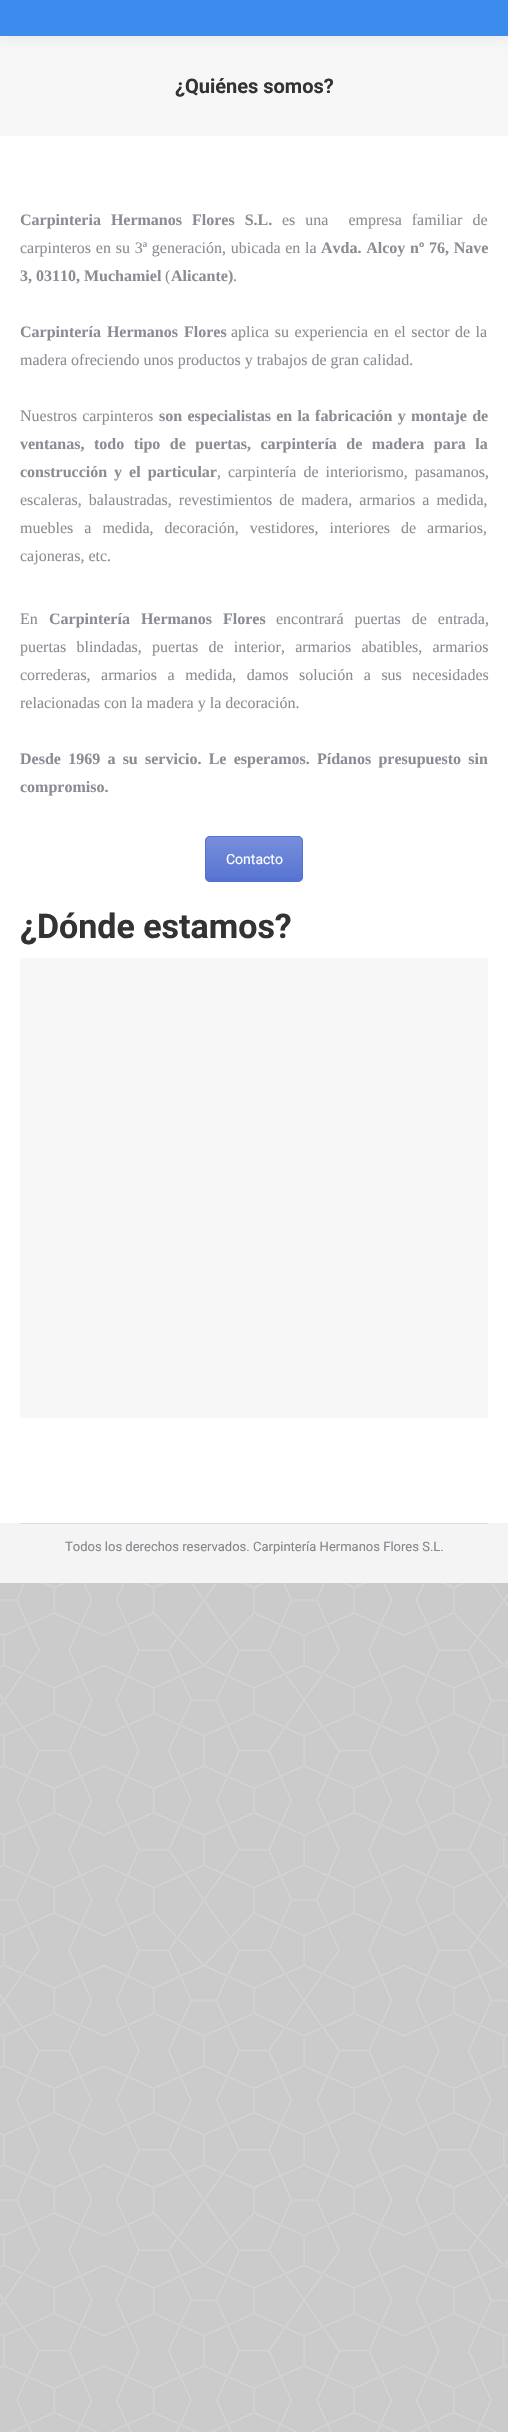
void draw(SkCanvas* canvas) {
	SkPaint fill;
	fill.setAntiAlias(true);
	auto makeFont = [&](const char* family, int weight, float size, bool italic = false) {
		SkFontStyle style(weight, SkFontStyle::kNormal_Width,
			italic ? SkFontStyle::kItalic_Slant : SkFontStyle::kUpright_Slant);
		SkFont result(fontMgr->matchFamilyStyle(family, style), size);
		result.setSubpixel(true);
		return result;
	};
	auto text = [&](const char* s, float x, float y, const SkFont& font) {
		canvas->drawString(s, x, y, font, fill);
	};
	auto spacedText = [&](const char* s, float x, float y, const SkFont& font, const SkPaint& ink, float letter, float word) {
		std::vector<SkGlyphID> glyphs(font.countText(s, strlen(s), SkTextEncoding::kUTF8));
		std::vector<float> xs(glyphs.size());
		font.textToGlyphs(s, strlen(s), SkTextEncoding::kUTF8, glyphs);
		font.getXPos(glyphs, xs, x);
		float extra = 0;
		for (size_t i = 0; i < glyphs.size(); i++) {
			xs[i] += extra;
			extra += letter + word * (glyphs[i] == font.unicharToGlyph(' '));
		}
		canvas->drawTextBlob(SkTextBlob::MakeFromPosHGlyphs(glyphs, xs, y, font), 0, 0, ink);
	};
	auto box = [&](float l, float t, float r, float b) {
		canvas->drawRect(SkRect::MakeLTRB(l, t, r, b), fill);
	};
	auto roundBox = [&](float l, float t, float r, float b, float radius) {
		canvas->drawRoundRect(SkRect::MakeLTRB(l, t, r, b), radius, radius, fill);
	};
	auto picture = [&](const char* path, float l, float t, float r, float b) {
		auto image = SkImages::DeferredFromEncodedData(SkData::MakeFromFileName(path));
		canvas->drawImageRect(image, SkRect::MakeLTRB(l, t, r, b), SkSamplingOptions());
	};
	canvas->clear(0xFFF7F7F7);
	picture("image0.png", 0, 1583, 508, 2432);
	fill.setColor(0xFFFFFFFF);
	box(0, 136, 508, 1523);
	fill.setColor(0x12000000);
	fill.setMaskFilter(SkMaskFilter::MakeBlur(kNormal_SkBlurStyle, 7.5f));
	canvas->drawRect(SkRect::MakeLTRB(-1, -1, 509, 37), fill);
	fill.setMaskFilter(nullptr);
	fill.setColor(0xFF3B8CED);
	box(0, 0, 508, 36);
	fill.setColor(0xFF5472D2);
	roundBox(205, 836, 303, 882, 5);
	canvas->save();
	canvas->clipPath(SkPathBuilder().moveTo(210, 836).lineTo(298, 836).cubicTo(301, 836, 303, 838, 303, 841).lineTo(303, 877).cubicTo(303, 880, 301, 882, 298, 882).lineTo(210, 882).cubicTo(207, 882, 205, 880, 205, 877).lineTo(205, 841).cubicTo(205, 838, 207, 836, 210, 836).close().detach(), true);
	{
		const SkColor colors[] = {0x33FFFFFF, 0x03FFFFFF};
		const float stops[] = {0, 1};
		const SkPoint ends[] = {{254, 837}, {254, 881}};
		fill.setShader(SkGradientShader::MakeLinear(ends, colors, stops, 2, SkTileMode::kClamp));
		fill.setAlpha(255);
	}
	box(205, 837, 303, 878);
	canvas->restore();
	fill.setStyle(SkPaint::kStroke_Style);
	fill.setStrokeWidth(1);
	fill.setShader(nullptr);
	fill.setColor(0xFF5472D2);
	canvas->drawRoundRect(SkRect::MakeLTRB(205.5f, 836.5f, 302.5f, 881.5f), 4.5f, 4.5f, fill);
	fill.setStyle(SkPaint::kFill_Style);
	fill.setColor(0xFFF7F7F7);
	box(20, 958, 488, 1418);
	fill.setColor(0xFFF4F4F4);
	box(0, 1523, 508, 1583);
	fill.setColor(0xFFDDDDDD);
	box(20, 1523, 488, 1524);
	auto font1 = makeFont("Roboto", 700, 20);
	fill.setColor(0xFF333333);
	text("¿Quiénes somos?", 175, 93, font1);
	auto font2 = makeFont("Liberation Serif", 700, 16);
	fill.setColor(0xFF8B8D94);
	spacedText("Carpinteria Hermanos Flores S.L.", 20, 225, font2, fill, 0, 6);
	auto font3 = makeFont("Liberation Serif", 400, 16);
	spacedText("es una  empresa familiar de", 282, 225, font3, fill, 0, 6);
	spacedText("carpinteros en su 3ª generación, ubicada en la", 20, 253, font3, fill, 0, 0.75f);
	spacedText("Avda. Alcoy nº 76, Nave", 321, 253, font2, fill, 0, 0.75f);
	text("3, 03110, Muchamiel", 20, 281, font2);
	text("(", 165, 281, font3);
	text("Alicante)", 171, 281, font2);
	text(".", 233, 281, font3);
	spacedText("Carpintería Hermanos Flores", 20, 337, font2, fill, 0, 2);
	spacedText("aplica su experiencia en el sector de la", 231, 337, font3, fill, 0, 1.5f);
	text("madera ofreciendo unos productos y trabajos de gran calidad.", 20, 365, font3);
	spacedText("Nuestros carpinteros", 20, 421, font3, fill, 0, 1.25f);
	spacedText("son especialistas en la fabricación y montaje de", 159, 421, font2, fill, 0, 1.25f);
	spacedText("ventanas, todo tipo de puertas, carpintería de madera para la", 20, 449, font2, fill, 0, 5.5f);
	spacedText("construcción y el particular", 20, 477, font2, fill, 0, 3);
	spacedText(", carpintería de interiorismo, pasamanos,", 217, 477, font3, fill, 0, 3);
	spacedText("escaleras, balaustradas, revestimientos de madera, armarios a medida,", 20, 505, font3, fill, 0, 3);
	spacedText("muebles a medida, decoración, vestidores, interiores de armarios,", 20, 533, font3, fill, 0, 7);
	text("cajoneras, etc.", 20, 561, font3);
	text("En", 20, 624, font3);
	spacedText("Carpintería Hermanos Flores", 49, 624, font2, fill, 0, 7);
	spacedText("encontrará puertas de entrada,", 276, 624, font3, fill, 0, 7);
	spacedText("puertas blindadas, puertas de interior, armarios abatibles, armarios", 20, 652, font3, fill, 0, 6.25f);
	spacedText("correderas, armarios a medida, damos solución a sus necesidades", 20, 680, font3, fill, 0, 6.5f);
	text("relacionadas con la madera y la decoración.", 20, 708, font3);
	spacedText("Desde 1969 a su servicio. Le esperamos. Pídanos presupuesto sin", 20, 764, font2, fill, 0, 3.25f);
	text("compromiso.", 20, 792, font2);
	auto font4 = makeFont("Roboto", 400, 14);
	fill.setColor(0xFFFFFFFF);
	text("Contacto", 226, 864, font4);
	auto font5 = makeFont("Roboto", 700, 34);
	fill.setColor(0xFF333333);
	text("¿Dónde estamos?", 20, 938, font5);
	auto font6 = makeFont("Roboto", 400, 13);
	fill.setColor(0xFF85868C);
	text("Todos los derechos reservados. Carpintería Hermanos Flores S.L.", 65, 1551, font6);
}
